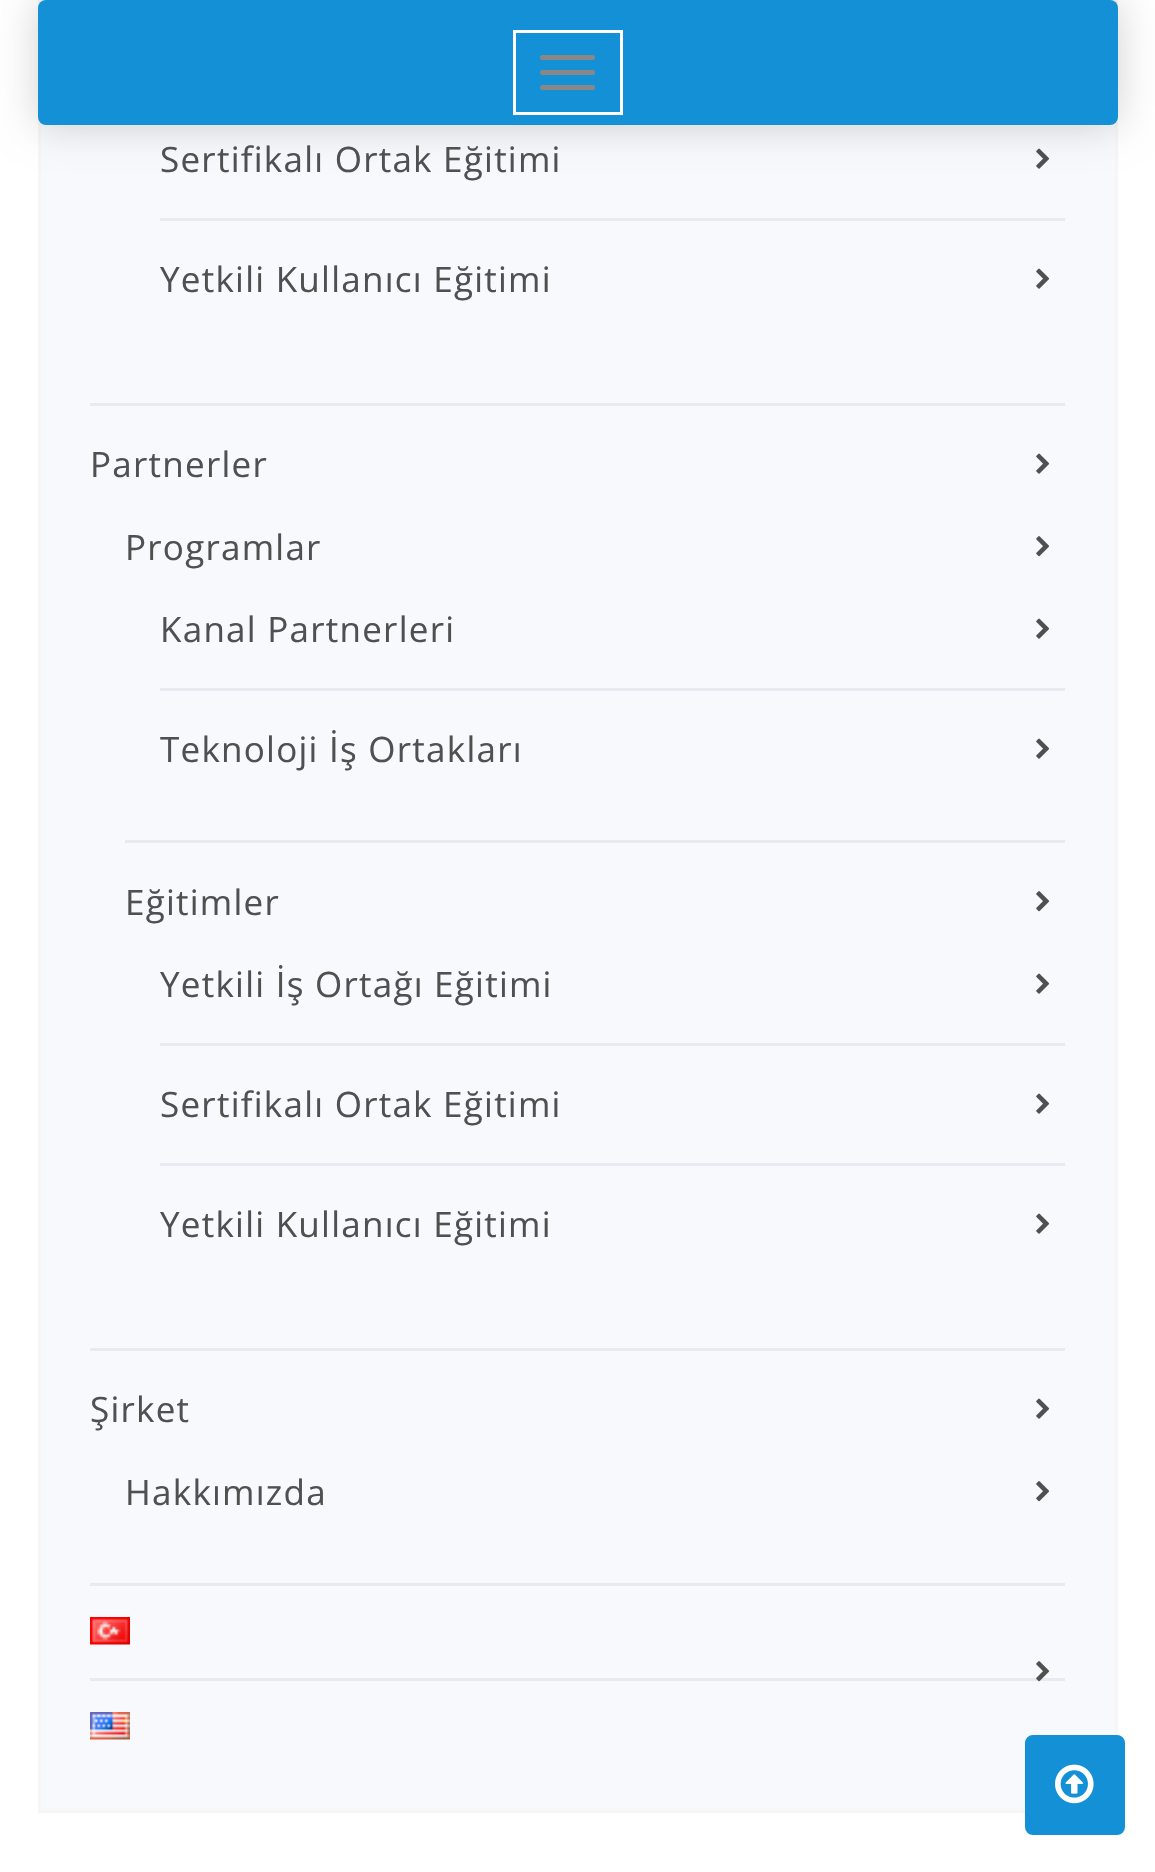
void draw(SkCanvas* canvas) {
	SkPaint fill;
	fill.setAntiAlias(true);
	auto makeFont = [&](const char* family, int weight, float size, bool italic = false) {
		SkFontStyle style(weight, SkFontStyle::kNormal_Width,
			italic ? SkFontStyle::kItalic_Slant : SkFontStyle::kUpright_Slant);
		SkFont result(fontMgr->matchFamilyStyle(family, style), size);
		result.setSubpixel(true);
		return result;
	};
	auto spacedText = [&](const char* s, float x, float y, const SkFont& font, const SkPaint& ink, float letter, float word) {
		std::vector<SkGlyphID> glyphs(font.countText(s, strlen(s), SkTextEncoding::kUTF8));
		std::vector<float> xs(glyphs.size());
		font.textToGlyphs(s, strlen(s), SkTextEncoding::kUTF8, glyphs);
		font.getXPos(glyphs, xs, x);
		float extra = 0;
		for (size_t i = 0; i < glyphs.size(); i++) {
			xs[i] += extra;
			extra += letter + word * (glyphs[i] == font.unicharToGlyph(' '));
		}
		canvas->drawTextBlob(SkTextBlob::MakeFromPosHGlyphs(glyphs, xs, y, font), 0, 0, ink);
	};
	auto box = [&](float l, float t, float r, float b) {
		canvas->drawRect(SkRect::MakeLTRB(l, t, r, b), fill);
	};
	auto roundBox = [&](float l, float t, float r, float b, float radius) {
		canvas->drawRoundRect(SkRect::MakeLTRB(l, t, r, b), radius, radius, fill);
	};
	auto picture = [&](const char* path, float l, float t, float r, float b) {
		auto image = SkImages::DeferredFromEncodedData(SkData::MakeFromFileName(path));
		canvas->drawImageRect(image, SkRect::MakeLTRB(l, t, r, b), SkSamplingOptions());
	};
	canvas->clear(0xFFFFFFFF);
	fill.setColor(0xFFF7F9FC);
	canvas->drawRect(SkRect::MakeLTRB(39.5f, -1.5f, 1116.5f, 1811.5f), fill);
	fill.setStyle(SkPaint::kStroke_Style);
	fill.setStrokeWidth(3);
	fill.setColor(0xFFF6F6F6);
	canvas->drawRect(SkRect::MakeLTRB(39.5f, -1.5f, 1116.5f, 1811.5f), fill);
	picture("image0.png", 1036, 148, 1050, 169);
	fill.setStyle(SkPaint::kFill_Style);
	fill.setColor(0x2E000000);
	fill.setMaskFilter(SkMaskFilter::MakeBlur(kNormal_SkBlurStyle, 20));
	canvas->drawRoundRect(SkRect::MakeLTRB(38, 0, 1118, 125), 8, 8, fill);
	fill.setMaskFilter(nullptr);
	fill.setColor(0xFF1490D7);
	roundBox(38, 0, 1118, 125, 8);
	fill.setStyle(SkPaint::kStroke_Style);
	fill.setColor(0xFFFFFFFF);
	canvas->drawRect(SkRect::MakeLTRB(514.5f, 31.5f, 621.5f, 113.5f), fill);
	fill.setStyle(SkPaint::kFill_Style);
	fill.setColor(0xFF888888);
	roundBox(540, 55, 595, 60, 2.5f);
	roundBox(540, 70, 595, 75, 2.5f);
	roundBox(540, 85, 595, 90, 2.5f);
	fill.setColor(0xFFE7EAF1);
	box(90, 403, 1065, 406);
	box(160, 218, 1065, 221);
	picture("image0.png", 1036, 268, 1050, 289);
	box(90, 1348, 1065, 1351);
	picture("image0.png", 1036, 453, 1050, 474);
	box(125, 840, 1065, 843);
	picture("image1.png", 1036, 536, 1050, 557);
	box(160, 688, 1065, 691);
	picture("image0.png", 1036, 618, 1050, 639);
	picture("image0.png", 1036, 738, 1050, 759);
	picture("image1.png", 1036, 891, 1050, 912);
	box(160, 1043, 1065, 1046);
	picture("image0.png", 1036, 973, 1050, 994);
	box(160, 1163, 1065, 1166);
	picture("image0.png", 1036, 1093, 1050, 1114);
	picture("image0.png", 1036, 1213, 1050, 1234);
	box(90, 1583, 1065, 1586);
	picture("image0.png", 1036, 1398, 1050, 1419);
	picture("image1.png", 1036, 1481, 1050, 1502);
	box(90, 1678, 1065, 1681);
	picture("image2.png", 90, 1617, 130, 1645);
	picture("image3.png", 1036, 1661, 1050, 1682);
	picture("image4.png", 90, 1712, 130, 1740);
	fill.setColor(0xFF1490D7);
	canvas->drawRoundRect(SkRect::MakeLTRB(1027.5f, 1737.5f, 1122.5f, 1832.5f), 5.5f, 5.5f, fill);
	fill.setStyle(SkPaint::kStroke_Style);
	fill.setStrokeWidth(5);
	canvas->drawRoundRect(SkRect::MakeLTRB(1027.5f, 1737.5f, 1122.5f, 1832.5f), 5.5f, 5.5f, fill);
	picture("image5.png", 1055, 1764, 1094, 1804);
	auto font1 = makeFont("Open Sans", 400, 35);
	fill.setStyle(SkPaint::kFill_Style);
	fill.setColor(0xFF505050);
	spacedText("Sertifikalı Ortak Eğitimi", 160, 172, font1, fill, 1.25f, 0);
	spacedText("Yetkili Kullanıcı Eğitimi", 160, 292, font1, fill, 1.25f, 0);
	spacedText("Partnerler", 90, 477, font1, fill, 1.25f, 0);
	spacedText("Programlar", 125, 560, font1, fill, 1.25f, 0);
	spacedText("Kanal Partnerleri", 160, 642, font1, fill, 1.25f, 0);
	spacedText("Teknoloji İş Ortakları", 160, 762, font1, fill, 1.25f, 0);
	spacedText("Eğitimler", 125, 915, font1, fill, 1.25f, 0);
	spacedText("Yetkili İş Ortağı Eğitimi", 160, 997, font1, fill, 1.25f, 0);
	spacedText("Sertifikalı Ortak Eğitimi", 160, 1117, font1, fill, 1.25f, 0);
	spacedText("Yetkili Kullanıcı Eğitimi", 160, 1237, font1, fill, 1.25f, 0);
	spacedText("Şirket", 90, 1422, font1, fill, 1.25f, 0);
	spacedText("Hakkımızda", 125, 1505, font1, fill, 1.25f, 0);
}
